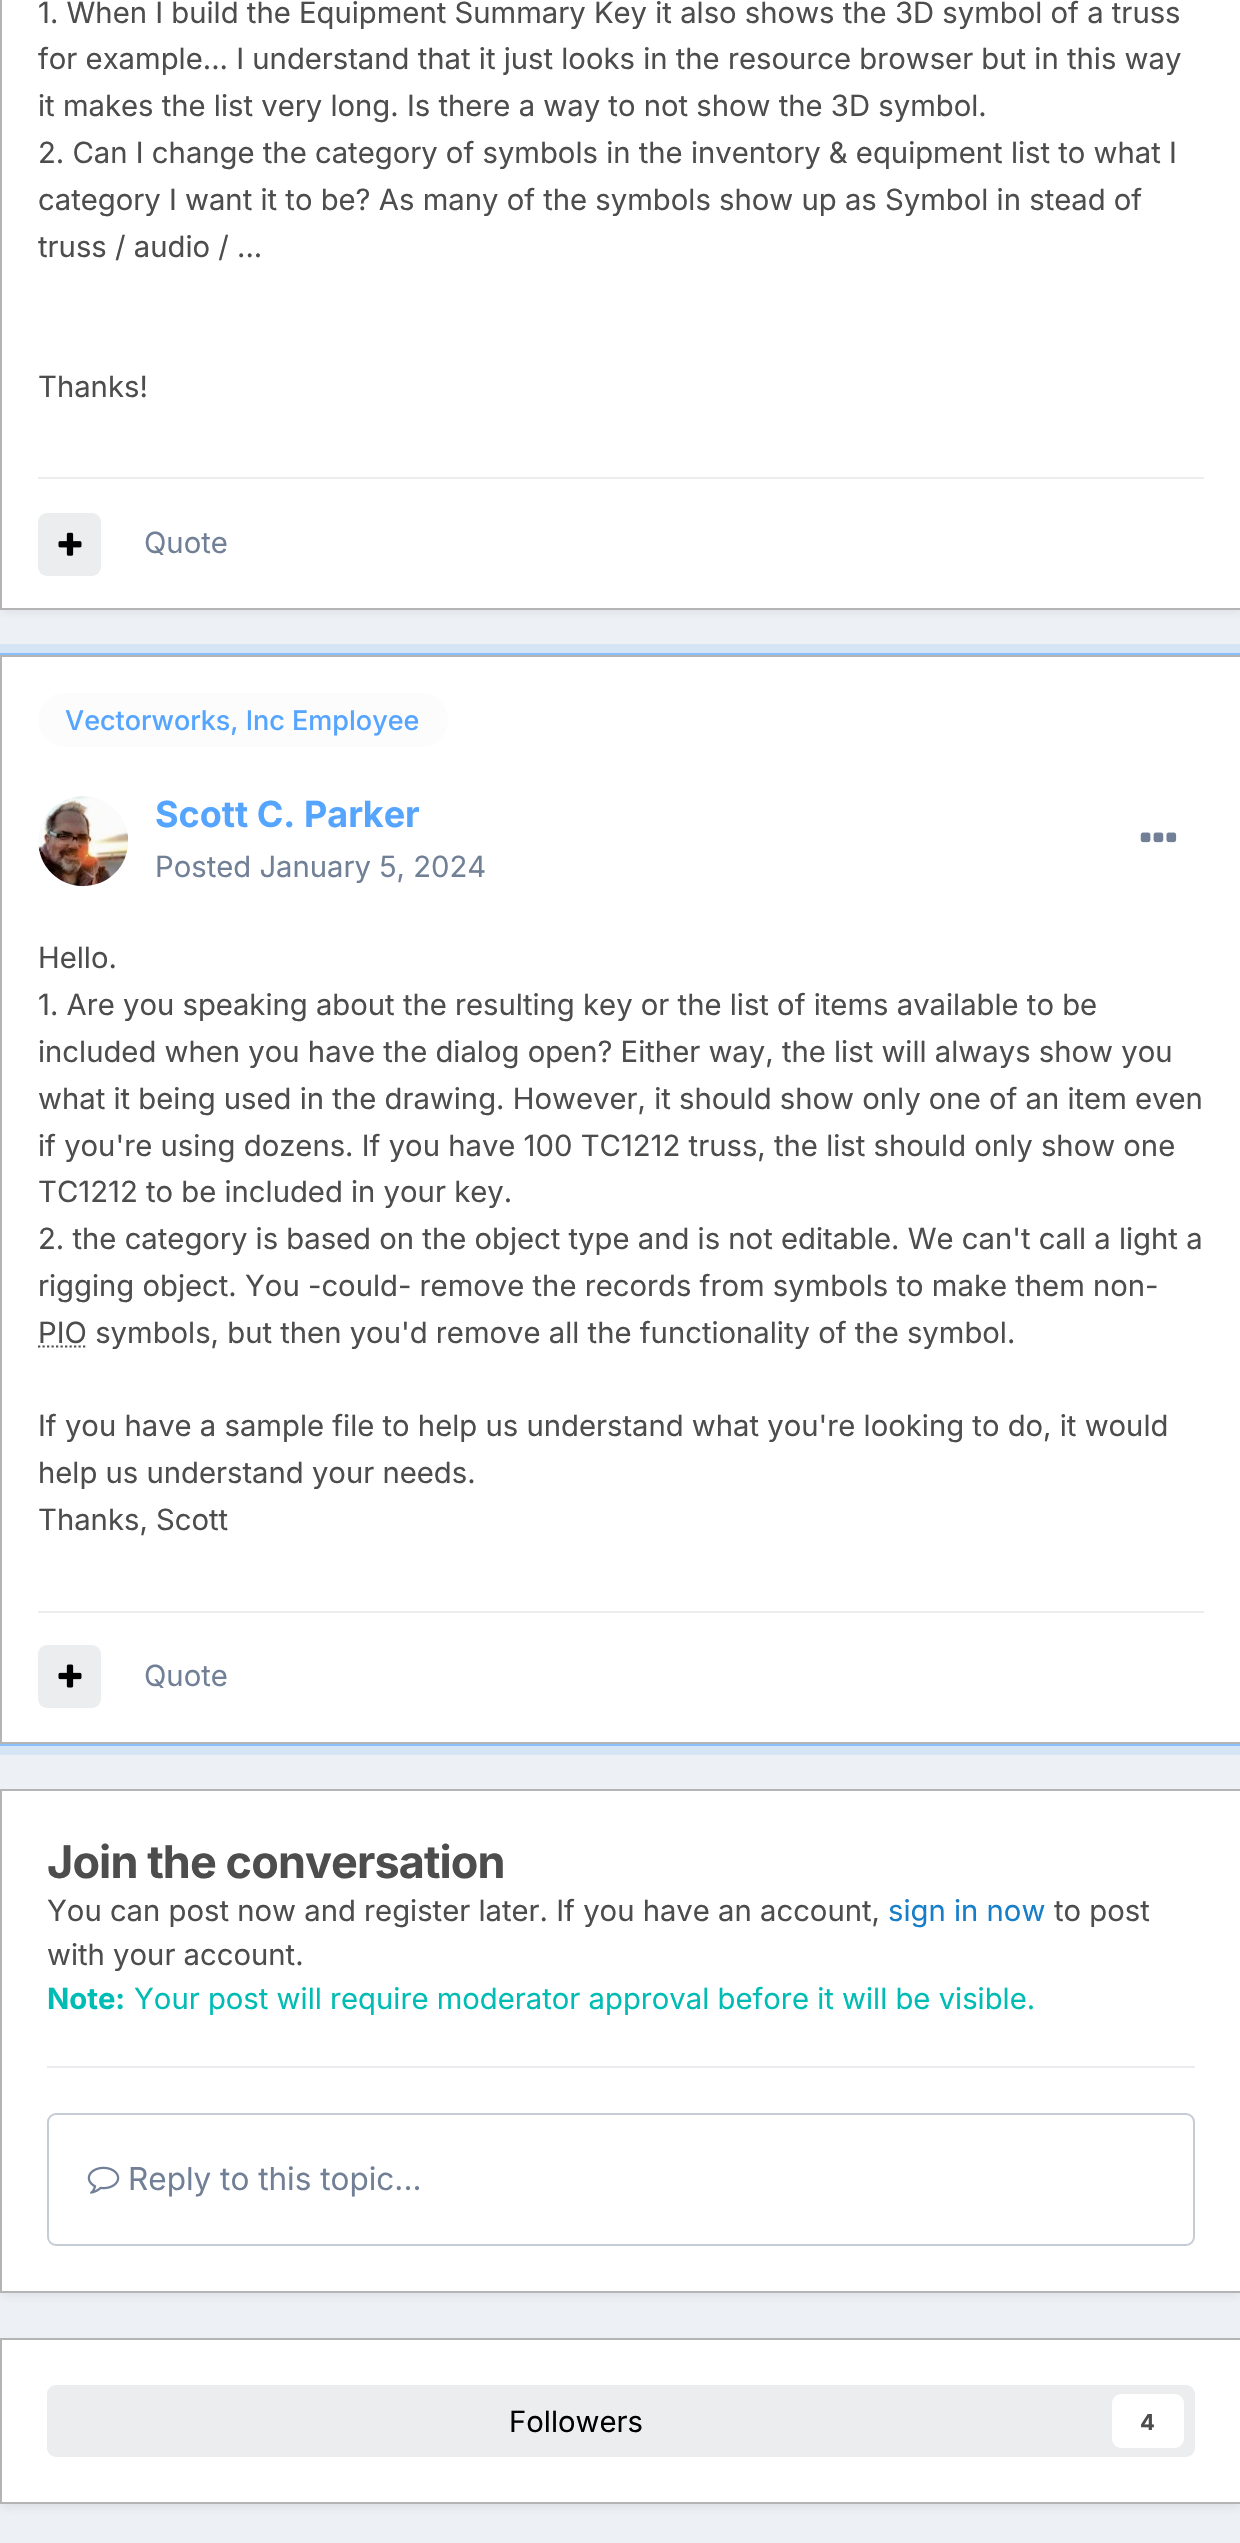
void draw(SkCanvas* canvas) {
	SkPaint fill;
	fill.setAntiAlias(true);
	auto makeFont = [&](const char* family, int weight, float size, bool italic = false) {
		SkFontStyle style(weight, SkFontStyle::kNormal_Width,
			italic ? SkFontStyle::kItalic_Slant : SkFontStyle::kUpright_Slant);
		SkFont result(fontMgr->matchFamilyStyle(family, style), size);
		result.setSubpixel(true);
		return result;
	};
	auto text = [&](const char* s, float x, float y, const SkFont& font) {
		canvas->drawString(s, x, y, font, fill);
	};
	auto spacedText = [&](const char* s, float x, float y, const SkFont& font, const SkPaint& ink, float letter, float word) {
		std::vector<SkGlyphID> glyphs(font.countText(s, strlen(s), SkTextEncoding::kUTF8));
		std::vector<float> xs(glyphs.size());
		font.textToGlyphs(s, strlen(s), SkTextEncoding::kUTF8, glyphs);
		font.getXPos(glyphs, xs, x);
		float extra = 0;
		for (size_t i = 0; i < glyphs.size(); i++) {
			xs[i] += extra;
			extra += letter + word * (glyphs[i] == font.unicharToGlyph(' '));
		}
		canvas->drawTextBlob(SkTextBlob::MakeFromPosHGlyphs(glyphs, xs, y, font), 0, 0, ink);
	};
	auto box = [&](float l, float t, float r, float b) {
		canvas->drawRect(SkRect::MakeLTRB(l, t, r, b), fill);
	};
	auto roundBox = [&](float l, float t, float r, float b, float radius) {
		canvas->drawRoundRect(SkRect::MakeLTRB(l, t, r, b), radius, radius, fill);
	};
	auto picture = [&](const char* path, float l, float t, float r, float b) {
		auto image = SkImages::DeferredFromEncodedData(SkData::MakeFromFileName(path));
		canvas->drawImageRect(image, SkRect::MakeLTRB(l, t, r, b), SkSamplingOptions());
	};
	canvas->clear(0xFFEDF0F4);
	fill.setColor(0x1A3B3B3B);
	fill.setMaskFilter(SkMaskFilter::MakeBlur(kNormal_SkBlurStyle, 4.5f));
	canvas->drawRect(SkRect::MakeLTRB(2, -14, 1240, 612), fill);
	fill.setMaskFilter(nullptr);
	fill.setColor(0xFFFFFFFF);
	canvas->drawRect(SkRect::MakeLTRB(1, -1, 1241, 609), fill);
	fill.setStyle(SkPaint::kStroke_Style);
	fill.setStrokeWidth(2);
	fill.setColor(0xFFB4B4B4);
	canvas->drawRect(SkRect::MakeLTRB(1, -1, 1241, 609), fill);
	fill.setStyle(SkPaint::kFill_Style);
	fill.setColor(0xFFEDEDED);
	box(38, 477, 1204, 479);
	fill.setColor(0xFFEBEDEE);
	roundBox(38, 513, 101, 576, 9);
	picture("image0.png", 58, 532, 82, 556);
	fill.setStyle(SkPaint::kStroke_Style);
	fill.setStrokeWidth(11);
	fill.setColor(0xFFD6E5F6);
	canvas->drawRect(SkRect::MakeLTRB(-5.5f, 649.5f, 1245.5f, 1749.5f), fill);
	fill.setStrokeWidth(2);
	fill.setColor(0xFF89BFFB);
	canvas->drawRect(SkRect::MakeLTRB(-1, 654, 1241, 1745), fill);
	fill.setStyle(SkPaint::kFill_Style);
	fill.setColor(0xFFFFFFFF);
	canvas->drawRect(SkRect::MakeLTRB(1, 656, 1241, 1743), fill);
	fill.setStyle(SkPaint::kStroke_Style);
	fill.setColor(0xFFB4B4B4);
	canvas->drawRect(SkRect::MakeLTRB(1, 656, 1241, 1743), fill);
	fill.setStyle(SkPaint::kFill_Style);
	fill.setColor(0xFFFCFCFC);
	roundBox(38, 693, 448, 747, 27);
	picture("image1.png", 38, 796, 129, 887);
	picture("image2.png", 1140, 832, 1177, 843);
	fill.setStyle(SkPaint::kStroke_Style);
	fill.setStrokeWidth(2.2f);
	fill.setColor(0xFF4D4D4D);
	fill.setPathEffect(SkDashPathEffect::Make({{2.25f, 2.25f}}, 0));
	canvas->drawPath(SkPathBuilder().moveTo(38, 1346.5f).lineTo(87, 1346.5f).detach(), fill);
	fill.setPathEffect(nullptr);
	fill.setStyle(SkPaint::kFill_Style);
	fill.setColor(0xFFEDEDED);
	box(38, 1611, 1204, 1613);
	fill.setColor(0xFFEBEDEE);
	roundBox(38, 1645, 101, 1708, 9);
	picture("image3.png", 58, 1664, 82, 1688);
	fill.setColor(0x1A3B3B3B);
	fill.setMaskFilter(SkMaskFilter::MakeBlur(kNormal_SkBlurStyle, 4.5f));
	canvas->drawRect(SkRect::MakeLTRB(2, 1796, 1240, 2295), fill);
	fill.setMaskFilter(nullptr);
	fill.setColor(0xFFFFFFFF);
	canvas->drawRect(SkRect::MakeLTRB(1, 1790, 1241, 2292), fill);
	fill.setStyle(SkPaint::kStroke_Style);
	fill.setStrokeWidth(2);
	fill.setColor(0xFFB4B4B4);
	canvas->drawRect(SkRect::MakeLTRB(1, 1790, 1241, 2292), fill);
	fill.setStyle(SkPaint::kFill_Style);
	fill.setColor(0xFFEAECEF);
	box(47, 2066, 1195, 2068);
	fill.setStyle(SkPaint::kStroke_Style);
	fill.setColor(0xFFC6CCD5);
	canvas->drawRoundRect(SkRect::MakeLTRB(48, 2114, 1194, 2245), 8, 8, fill);
	picture("image4.png", 87, 2166, 120, 2194);
	fill.setStyle(SkPaint::kFill_Style);
	fill.setColor(0x1A3B3B3B);
	fill.setMaskFilter(SkMaskFilter::MakeBlur(kNormal_SkBlurStyle, 4.5f));
	canvas->drawRect(SkRect::MakeLTRB(2, 2345, 1240, 2507), fill);
	fill.setMaskFilter(nullptr);
	fill.setColor(0xFFFFFFFF);
	canvas->drawRect(SkRect::MakeLTRB(1, 2339, 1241, 2503), fill);
	fill.setStyle(SkPaint::kStroke_Style);
	fill.setColor(0xFFB4B4B4);
	canvas->drawRect(SkRect::MakeLTRB(1, 2339, 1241, 2503), fill);
	fill.setStyle(SkPaint::kFill_Style);
	fill.setColor(0xFFEBEDEE);
	roundBox(47, 2385, 1195, 2457, 9);
	fill.setColor(0xFFFFFFFF);
	roundBox(1112, 2394, 1184, 2448, 9);
	auto font1 = makeFont("Inter", 400, 29.25f);
	fill.setColor(0xFF4D4D4D);
	text("1. When I build the Equipment Summary Key it also shows the 3D symbol of a truss", 38, 23, font1);
	text("for example... I understand that it just looks in the resource browser but in this way", 38, 69, font1);
	text("it makes the list very long. Is there a way to not show the 3D symbol.", 38, 116, font1);
	text("2. Can I change the category of symbols in the inventory & equipment list to what I", 38, 163, font1);
	text("category I want it to be? As many of the symbols show up as Symbol in stead of", 38, 210, font1);
	text("truss / audio / ...", 38, 257, font1);
	text("Thanks!", 38, 397, font1);
	fill.setColor(0xFF718096);
	text("Quote", 144, 553, font1);
	auto font2 = makeFont("Inter", 500, 27);
	fill.setColor(0xFF55A5FF);
	text("Vectorworks, Inc Employee", 65, 730, font2);
	auto font3 = makeFont("Inter", 700, 36);
	text("Scott C. Parker", 155, 827, font3);
	fill.setColor(0xFF718096);
	text("Posted January 5, 2024", 155, 877, font1);
	fill.setColor(0xFF4D4D4D);
	text("Hello.", 38, 968, font1);
	text("1. Are you speaking about the resulting key or the list of items available to be", 38, 1015, font1);
	text("included when you have the dialog open? Either way, the list will always show you", 38, 1062, font1);
	text("what it being used in the drawing. However, it should show only one of an item even", 38, 1109, font1);
	text("if you're using dozens. If you have 100 TC1212 truss, the list should only show one", 38, 1156, font1);
	text("TC1212 to be included in your key.", 38, 1202, font1);
	text("2. the category is based on the object type and is not editable. We can't call a light a", 38, 1249, font1);
	text("rigging object. You -could- remove the records from symbols to make them non-", 38, 1296, font1);
	text("PIO symbols, but then you'd remove all the functionality of the symbol.", 38, 1343, font1);
	text("If you have a sample file to help us understand what you're looking to do, it would", 38, 1436, font1);
	text("help us understand your needs.", 38, 1483, font1);
	text("Thanks, Scott", 38, 1530, font1);
	fill.setColor(0xFF718096);
	text("Quote", 144, 1686, font1);
	auto font4 = makeFont("Inter", 700, 45);
	fill.setColor(0xFF4D4D4D);
	spacedText("Join the conversation", 47, 1878, font4, fill, -0.9f, 0);
	text("You can post now and register later. If you have an account,", 47, 1921, font1);
	fill.setColor(0xFF177EC9);
	text("sign in now", 888, 1921, font1);
	fill.setColor(0xFF4D4D4D);
	text("to post", 1054, 1921, font1);
	text("with your account.", 47, 1965, font1);
	auto font5 = makeFont("Inter", 700, 29.25f);
	fill.setColor(0xFF00BCB4);
	text("Note:", 47, 2009, font5);
	text("Your post will require moderator approval before it will be visible.", 134, 2009, font1);
	auto font6 = makeFont("Inter", 400, 31.5f);
	fill.setColor(0xFF718096);
	text("Reply to this topic...", 128, 2190, font6);
	fill.setColor(0xFF000000);
	text("Followers", 509, 2432, font1);
	auto font7 = makeFont("Inter", 700, 22);
	fill.setColor(0xFF4D4D4D);
	text("4", 1140, 2430, font7);
}
